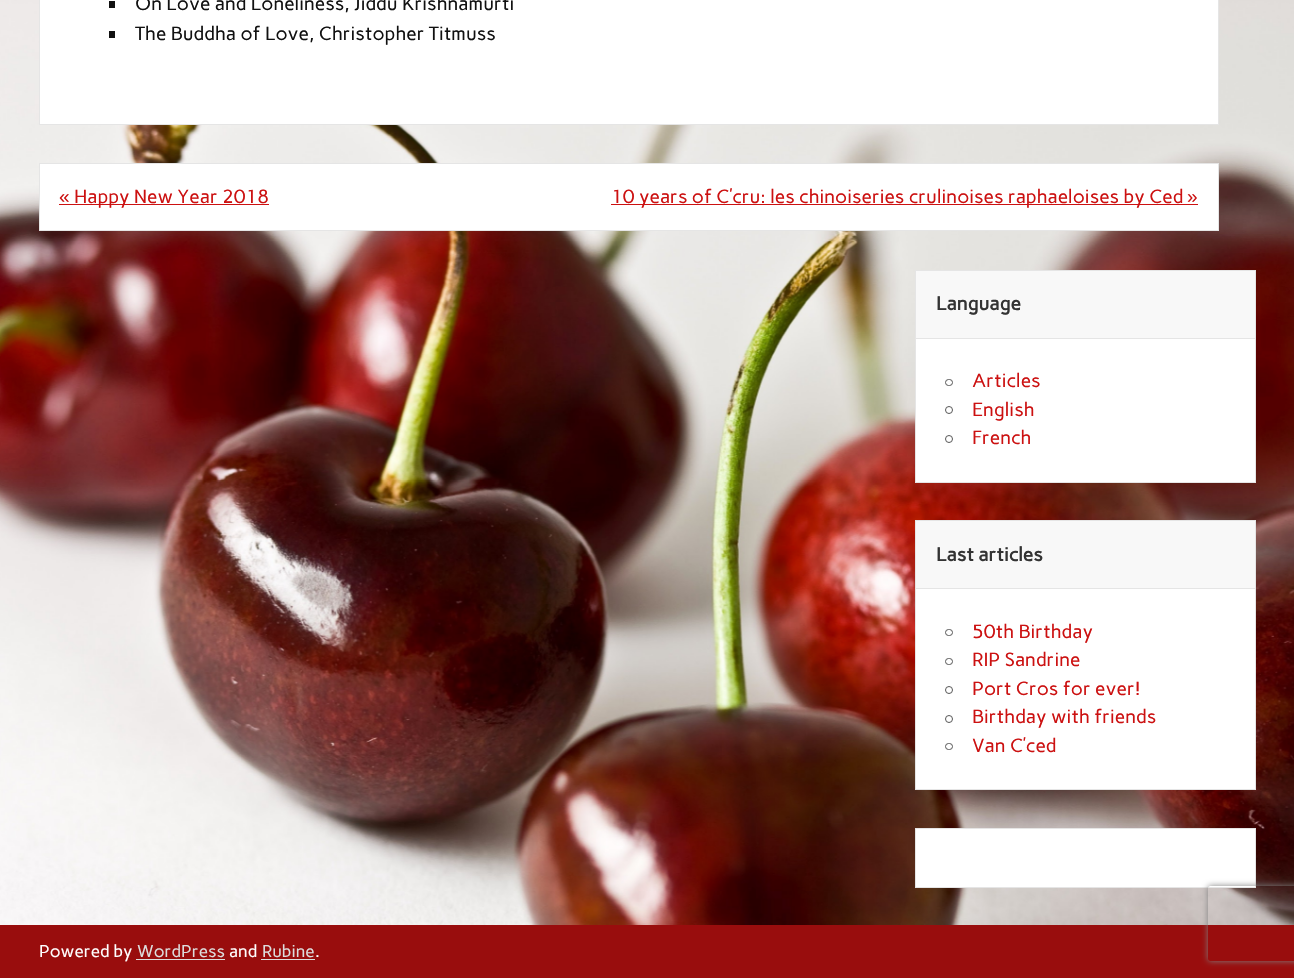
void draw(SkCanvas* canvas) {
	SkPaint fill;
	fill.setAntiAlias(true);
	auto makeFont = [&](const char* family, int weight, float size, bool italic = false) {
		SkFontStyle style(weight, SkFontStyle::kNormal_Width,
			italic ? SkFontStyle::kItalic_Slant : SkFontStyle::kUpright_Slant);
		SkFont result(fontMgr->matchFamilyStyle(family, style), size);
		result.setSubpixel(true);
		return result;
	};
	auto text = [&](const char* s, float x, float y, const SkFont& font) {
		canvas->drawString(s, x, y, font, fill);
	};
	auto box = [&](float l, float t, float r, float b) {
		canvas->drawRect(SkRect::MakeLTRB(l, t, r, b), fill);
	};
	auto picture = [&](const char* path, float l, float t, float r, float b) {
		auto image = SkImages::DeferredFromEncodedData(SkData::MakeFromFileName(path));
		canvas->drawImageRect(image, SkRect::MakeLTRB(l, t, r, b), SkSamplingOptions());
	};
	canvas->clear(0xFFFFFFFF);
	picture("image0.png", 0, 0, 1294, 925);
	fill.setStyle(SkPaint::kStroke_Style);
	fill.setStrokeWidth(1);
	fill.setColor(0xFFE5E5E5);
	canvas->drawRect(SkRect::MakeLTRB(39.5f, -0.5f, 1218.5f, 124.5f), fill);
	fill.setStyle(SkPaint::kFill_Style);
	fill.setColor(0xFFFFFFFF);
	box(40, 0, 1218, 124);
	fill.setColor(0xFF111111);
	box(109, 1, 115, 8);
	box(109, 31, 115, 38);
	fill.setColor(0xFFFFFFFF);
	canvas->drawRect(SkRect::MakeLTRB(39.5f, 163.5f, 1218.5f, 230.5f), fill);
	fill.setStyle(SkPaint::kStroke_Style);
	fill.setColor(0xFFE5E5E5);
	canvas->drawRect(SkRect::MakeLTRB(39.5f, 163.5f, 1218.5f, 230.5f), fill);
	fill.setStyle(SkPaint::kFill_Style);
	fill.setColor(0xFFCC1111);
	box(59, 204, 269, 205);
	box(611, 204, 1198, 205);
	fill.setColor(0xFFFFFFFF);
	box(916, 339, 1255, 482);
	fill.setStyle(SkPaint::kStroke_Style);
	fill.setColor(0xFFE5E5E5);
	canvas->drawRect(SkRect::MakeLTRB(915.5f, 270.5f, 1255.5f, 482.5f), fill);
	fill.setStyle(SkPaint::kFill_Style);
	fill.setColor(0xFFF8F8F8);
	box(916, 271, 1255, 338);
	fill.setColor(0xFFE5E5E5);
	box(916, 338, 1255, 339);
	fill.setStyle(SkPaint::kStroke_Style);
	fill.setColor(0xFF555555);
	canvas->drawRoundRect(SkRect::MakeLTRB(945.5f, 379.5f, 952.5f, 385.5f), 3, 3, fill);
	canvas->drawCircle(949, 410, 3.5f, fill);
	canvas->drawCircle(949, 439, 3.5f, fill);
	fill.setStyle(SkPaint::kFill_Style);
	fill.setColor(0xFFFFFFFF);
	box(916, 589, 1255, 789);
	fill.setStyle(SkPaint::kStroke_Style);
	fill.setColor(0xFFE5E5E5);
	canvas->drawRect(SkRect::MakeLTRB(915.5f, 520.5f, 1255.5f, 789.5f), fill);
	fill.setStyle(SkPaint::kFill_Style);
	fill.setColor(0xFFF8F8F8);
	box(916, 521, 1255, 588);
	fill.setColor(0xFFE5E5E5);
	box(916, 588, 1255, 589);
	fill.setStyle(SkPaint::kStroke_Style);
	fill.setColor(0xFF555555);
	canvas->drawRoundRect(SkRect::MakeLTRB(945.5f, 629.5f, 952.5f, 635.5f), 3, 3, fill);
	canvas->drawRoundRect(SkRect::MakeLTRB(945.5f, 658.5f, 952.5f, 664.5f), 3, 3, fill);
	canvas->drawCircle(949, 690, 3.5f, fill);
	canvas->drawCircle(949, 719, 3.5f, fill);
	canvas->drawRoundRect(SkRect::MakeLTRB(945.5f, 743.5f, 952.5f, 749.5f), 3, 3, fill);
	fill.setStyle(SkPaint::kFill_Style);
	fill.setColor(0xFFFFFFFF);
	canvas->drawRect(SkRect::MakeLTRB(915.5f, 828.5f, 1255.5f, 887.5f), fill);
	fill.setStyle(SkPaint::kStroke_Style);
	fill.setColor(0xFFE5E5E5);
	canvas->drawRect(SkRect::MakeLTRB(915.5f, 828.5f, 1255.5f, 887.5f), fill);
	fill.setStyle(SkPaint::kFill_Style);
	fill.setColor(0xFF990D0D);
	box(0, 925, 1294, 978);
	fill.setColor(0xFFDDDDDD);
	box(136, 959, 225, 960);
	box(261, 959, 315, 960);
	canvas->save();
	canvas->clipPath(SkPathBuilder(SkPathFillType::kEvenOdd).moveTo(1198, 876).lineTo(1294, 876).lineTo(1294, 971).lineTo(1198, 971).close().moveTo(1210.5f, 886).lineTo(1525.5f, 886).cubicTo(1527, 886, 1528, 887, 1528, 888.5f).lineTo(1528, 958.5f).cubicTo(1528, 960, 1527, 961, 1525.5f, 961).lineTo(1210.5f, 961).cubicTo(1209, 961, 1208, 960, 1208, 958.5f).lineTo(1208, 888.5f).cubicTo(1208, 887, 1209, 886, 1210.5f, 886).close().detach(), true);
	fill.setColor(0xFF808080);
	fill.setMaskFilter(SkMaskFilter::MakeBlur(kNormal_SkBlurStyle, 3));
	canvas->drawRoundRect(SkRect::MakeLTRB(1208, 886, 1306, 961), 2.5f, 2.5f, fill);
	fill.setMaskFilter(nullptr);
	canvas->restore();
	auto font1 = makeFont("Carme", 400, 19);
	fill.setColor(0xFF111111);
	text("On Love and Loneliness, Jiddu Krishnamurti", 135, 10, font1);
	text("The Buddha of Love, Christopher Titmuss", 135, 40, font1);
	auto font2 = makeFont("Liberation Sans", 400, 19);
	fill.setColor(0xFFCC1111);
	text("«", 59, 203, font2);
	text("Happy New Year 2018", 74, 203, font1);
	text("10 years of C’cru: les chinoiseries crulinoises raphaeloises by Ced", 611, 203, font1);
	text("»", 1187, 203, font2);
	auto font3 = makeFont("Carme", 700, 19);
	fill.setColor(0xFF333333);
	text("Language", 936, 310, font3);
	fill.setColor(0xFFCC1111);
	text("Articles", 972, 387, font1);
	text("English", 972, 416, font1);
	text("French", 972, 444, font1);
	fill.setColor(0xFF333333);
	text("Last articles", 936, 561, font3);
	fill.setColor(0xFFCC1111);
	text("50th Birthday", 972, 638, font1);
	text("RIP Sandrine", 972, 666, font1);
	text("Port Cros for ever!", 972, 695, font1);
	text("Birthday with friends", 972, 723, font1);
	text("Van C’ced", 972, 752, font1);
	auto font4 = makeFont("Carme", 400, 17);
	fill.setColor(0xFFFFFFFF);
	text("Powered by", 39, 957, font4);
	fill.setColor(0xFFDDDDDD);
	text("WordPress", 137, 957, font4);
	fill.setColor(0xFFFFFFFF);
	text("and", 229, 957, font4);
	fill.setColor(0xFFDDDDDD);
	text("Rubine", 262, 957, font4);
	fill.setColor(0xFFFFFFFF);
	text(".", 315, 957, font4);
}
